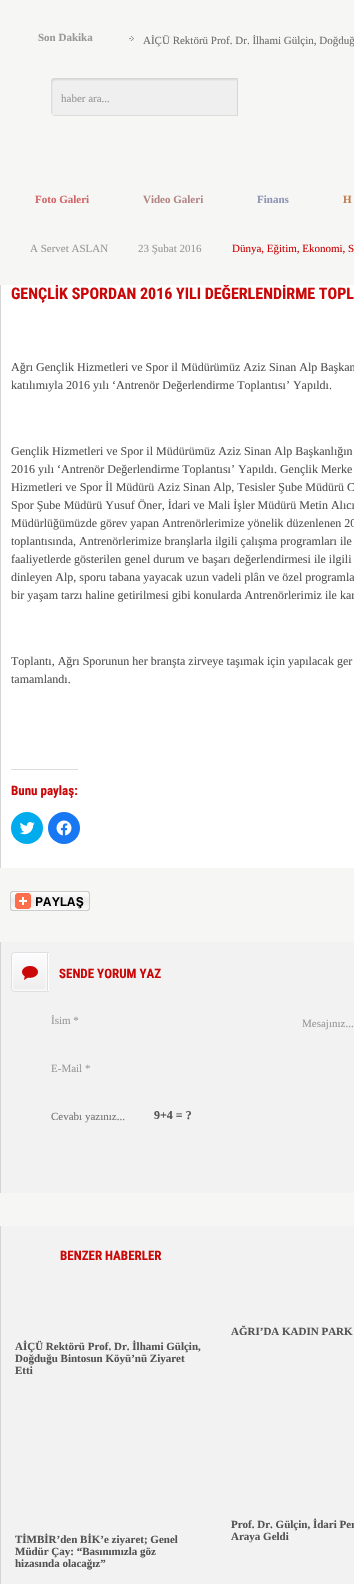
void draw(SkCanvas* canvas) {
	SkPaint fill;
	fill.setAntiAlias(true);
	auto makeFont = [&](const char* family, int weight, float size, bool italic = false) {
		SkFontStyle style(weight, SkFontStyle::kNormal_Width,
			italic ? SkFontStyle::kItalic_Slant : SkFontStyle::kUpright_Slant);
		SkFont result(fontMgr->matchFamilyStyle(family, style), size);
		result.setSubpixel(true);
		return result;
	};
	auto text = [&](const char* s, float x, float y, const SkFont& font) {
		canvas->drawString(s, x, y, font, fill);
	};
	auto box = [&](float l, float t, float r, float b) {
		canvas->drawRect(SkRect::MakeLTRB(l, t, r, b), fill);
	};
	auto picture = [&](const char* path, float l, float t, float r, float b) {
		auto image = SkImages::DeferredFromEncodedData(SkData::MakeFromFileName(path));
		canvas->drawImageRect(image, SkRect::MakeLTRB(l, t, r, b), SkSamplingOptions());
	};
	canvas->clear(0xFFF6F6F5);
	picture("image0.png", 129, 36, 134, 41);
	picture("image1.png", 51, 78, 238, 116);
	fill.setColor(0xFFFFFFFF);
	box(1, 285, 354, 868);
	fill.setColor(0xFFD4D4D4);
	box(0, 285, 1, 868);
	fill.setColor(0xFFDCDCDE);
	box(11, 769, 78, 770);
	fill.setColor(0xFF00ACEE);
	canvas->drawCircle(27, 828, 16, fill);
	picture("image2.png", 19, 822, 35, 835);
	fill.setColor(0xFF1877F2);
	canvas->drawCircle(64, 828, 16, fill);
	picture("image3.png", 56, 820, 72, 836);
	picture("image4.png", 10, 891, 90, 911);
	fill.setColor(0xFFF2F2F2);
	box(1, 942, 354, 1193);
	fill.setColor(0xFFD4D4D4);
	box(0, 942, 1, 1193);
	picture("image5.png", 11, 952, 49, 992);
	fill.setColor(0xFFF2F2F2);
	box(1, 1226, 354, 1584);
	fill.setColor(0xFFD4D4D4);
	box(0, 1226, 1, 1584);
	auto font1 = makeFont("Liberation Serif", 700, 11);
	fill.setColor(0xFF999999);
	text("Son Dakika", 38, 41, font1);
	auto font2 = makeFont("Liberation Serif", 400, 11);
	fill.setColor(0xFF6E6E6E);
	text("AİÇÜ Rektörü Prof. Dr. İlhami Gülçin, Doğduğ", 143, 44, font2);
	fill.setColor(0xFF999999);
	text("haber ara...", 61, 102, font2);
	fill.setColor(0xFFD36767);
	text("Foto Galeri", 35, 203, font1);
	fill.setColor(0xFFB58686);
	text("Video Galeri", 143, 203, font1);
	fill.setColor(0xFF8E95B4);
	text("Finans", 257, 203, font1);
	fill.setColor(0xFFBF7C4B);
	text("H", 343, 203, font1);
	fill.setColor(0xFF999999);
	text("A Servet ASLAN", 30, 252, font2);
	text("23 Şubat 2016", 138, 252, font2);
	fill.setColor(0xFFCB0707);
	text("Dünya, Eğitim, Ekonomi, S", 232, 252, font2);
	canvas->save();
	canvas->clipRect(SkRect::MakeLTRB(11, 285, 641, 863));
	auto font3 = makeFont("Roboto Condensed", 700, 16);
	text("GENÇLİK SPORDAN 2016 YILI DEĞERLENDİRME TOPL", 11, 299, font3);
	canvas->restore();
	auto font4 = makeFont("Liberation Serif", 400, 12);
	fill.setColor(0xFF535353);
	text("Ağrı Gençlik Hizmetleri ve Spor il Müdürümüz Aziz Sinan Alp Başkan", 11, 371, font4);
	text("katılımıyla 2016 yılı ‘Antrenör Değerlendirme Toplantısı’ Yapıldı.", 11, 389, font4);
	text("Gençlik Hizmetleri ve Spor il Müdürümüz Aziz Sinan Alp Başkanlığın", 11, 455, font4);
	text("2016 yılı ‘Antrenör Değerlendirme Toplantısı’ Yapıldı. Gençlik Merke", 11, 473, font4);
	text("Hizmetleri ve Spor İl Müdürü Aziz Sinan Alp, Tesisler Şube Müdürü C", 11, 491, font4);
	text("Spor Şube Müdürü Yusuf Öner, İdari ve Mali İşler Müdürü Metin Alıcı", 11, 509, font4);
	text("Müdürlüğümüzde görev yapan Antrenörlerimize yönelik düzenlenen 20", 11, 527, font4);
	text("toplantısında, Antrenörlerimize branşlarla ilgili çalışma programları ile", 11, 545, font4);
	text("faaliyetlerde gösterilen genel durum ve başarı değerlendirmesi ile ilgili", 11, 563, font4);
	text("dinleyen Alp, sporu tabana yayacak uzun vadeli plân ve özel programla", 11, 581, font4);
	text("bir yaşam tarzı haline getirilmesi gibi konularda Antrenörlerimiz ile kar", 11, 599, font4);
	text("Toplantı, Ağrı Sporunun her branşta zirveye taşımak için yapılacak ger", 11, 665, font4);
	text("tamamlandı.", 11, 683, font4);
	auto font5 = makeFont("Roboto Condensed", 700, 13);
	fill.setColor(0xFFCB0707);
	text("Bunu paylaş:", 11, 795, font5);
	text("SENDE YORUM YAZ", 59, 978, font5);
	fill.setColor(0xFF999999);
	text("İsim *", 51, 1024, font2);
	text("E-Mail *", 51, 1072, font2);
	fill.setColor(0xFF757575);
	text("Cevabı yazınız...", 51, 1120, font2);
	auto font6 = makeFont("Liberation Serif", 700, 12);
	fill.setColor(0xFF535353);
	text("9+4 = ?", 154, 1119, font6);
	fill.setColor(0xFF999999);
	text("Mesajınız...", 302, 1027, font2);
	fill.setColor(0xFFCB0707);
	text("BENZER HABERLER", 60, 1260, font5);
	fill.setColor(0xFF535353);
	text("AĞRI’DA KADIN PARK", 231, 1335, font1);
	text("AİÇÜ Rektörü Prof. Dr. İlhami Gülçin,", 15, 1350, font1);
	text("Doğduğu Bintosun Köyü’nü Ziyaret", 15, 1362, font1);
	text("Etti", 15, 1374, font1);
	text("Prof. Dr. Gülçin, İdari Per", 231, 1528, font1);
	text("Araya Geldi", 231, 1540, font1);
	text("TİMBİR’den BİK’e ziyaret; Genel", 15, 1543, font1);
	text("Müdür Çay: “Basınımızla göz", 15, 1555, font1);
	text("hizasında olacağız”", 15, 1567, font1);
}
